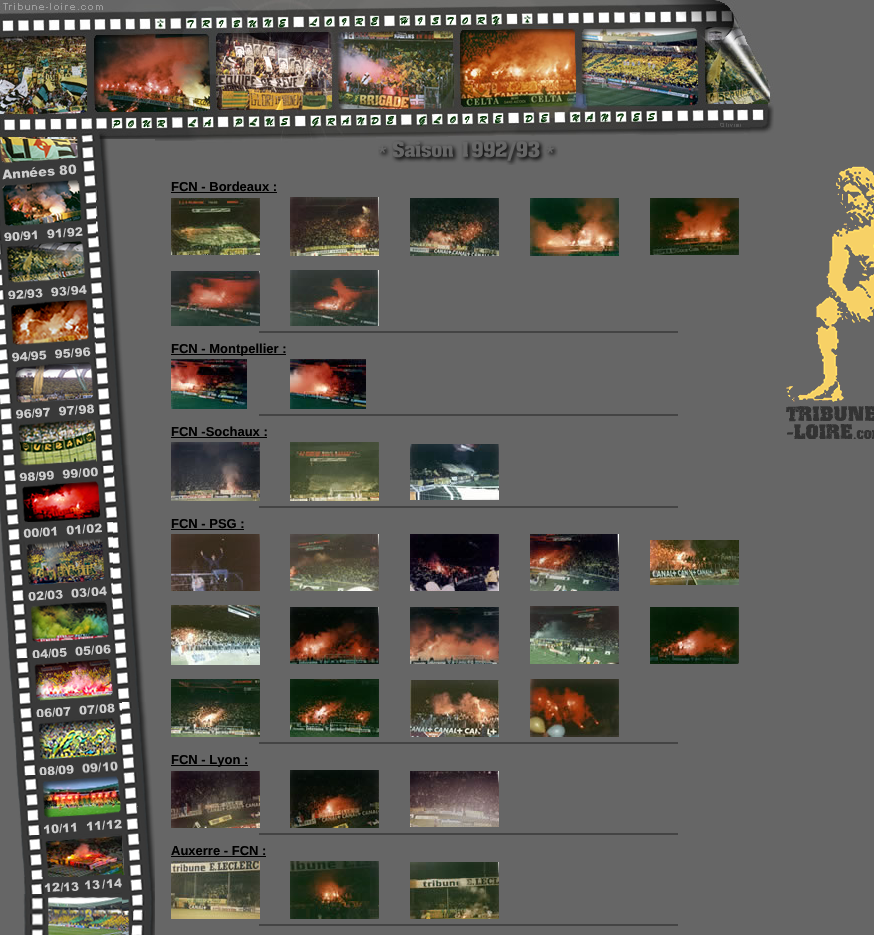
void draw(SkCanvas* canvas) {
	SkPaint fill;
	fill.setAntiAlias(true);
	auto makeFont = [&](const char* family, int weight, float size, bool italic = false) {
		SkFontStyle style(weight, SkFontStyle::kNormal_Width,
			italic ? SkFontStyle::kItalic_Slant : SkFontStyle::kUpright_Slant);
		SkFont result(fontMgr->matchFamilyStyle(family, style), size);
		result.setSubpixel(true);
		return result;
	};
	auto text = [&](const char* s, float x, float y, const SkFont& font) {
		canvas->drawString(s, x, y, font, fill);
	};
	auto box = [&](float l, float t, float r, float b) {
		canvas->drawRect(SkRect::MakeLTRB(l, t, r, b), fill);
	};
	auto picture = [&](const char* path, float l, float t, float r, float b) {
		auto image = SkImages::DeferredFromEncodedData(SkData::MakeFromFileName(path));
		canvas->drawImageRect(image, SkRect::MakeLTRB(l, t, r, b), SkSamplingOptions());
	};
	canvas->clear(0xFF666666);
	picture("image0.png", 0, 0, 774, 143);
	picture("image1.png", 0, 139, 155, 160);
	picture("image2.png", 0, 158, 96, 185);
	picture("image3.png", 96, 160, 129, 466);
	picture("image4.png", 0, 185, 96, 228);
	picture("image5.png", 0, 228, 46, 241);
	picture("image6.png", 46, 227, 96, 241);
	picture("image7.png", 0, 241, 96, 284);
	picture("image8.png", 0, 284, 46, 299);
	picture("image9.png", 46, 284, 96, 299);
	picture("image10.png", 0, 299, 96, 346);
	picture("image11.png", 0, 346, 54, 362);
	picture("image12.png", 54, 346, 96, 362);
	picture("image13.png", 0, 362, 96, 404);
	picture("image14.png", 0, 403, 54, 419);
	picture("image15.png", 54, 404, 96, 419);
	picture("image16.png", 0, 419, 96, 466);
	picture("image17.png", 0, 466, 54, 481);
	picture("image18.png", 54, 466, 113, 481);
	picture("image19.png", 113, 465, 145, 703);
	picture("image20.png", 0, 481, 113, 522);
	picture("image21.png", 0, 522, 66, 538);
	picture("image22.png", 66, 522, 113, 538);
	picture("image23.png", 1, 538, 113, 585);
	picture("image24.png", 4, 585, 66, 602);
	picture("image25.png", 66, 585, 113, 601);
	picture("image26.png", 5, 601, 113, 643);
	picture("image27.png", 8, 643, 75, 659);
	picture("image28.png", 75, 643, 113, 658);
	picture("image29.png", 9, 658, 113, 703);
	picture("image30.png", 12, 703, 75, 718);
	picture("image31.png", 75, 703, 122, 717);
	picture("image32.png", 122, 702, 155, 935);
	picture("image33.png", 13, 717, 122, 761);
	picture("image34.png", 16, 761, 75, 776);
	picture("image35.png", 75, 761, 122, 775);
	picture("image36.png", 17, 775, 122, 818);
	picture("image37.png", 20, 818, 83, 835);
	picture("image38.png", 83, 818, 122, 835);
	picture("image39.png", 21, 835, 122, 878);
	picture("image40.png", 24, 877, 83, 894);
	picture("image41.png", 83, 878, 122, 894);
	picture("image42.png", 23, 894, 122, 935);
	picture("image43.png", 378, 140, 558, 165);
	fill.setColor(0xFF000000);
	box(171, 192, 277, 193);
	picture("image44.png", 171, 198, 260, 255);
	picture("image45.png", 290, 197, 379, 256);
	picture("image46.png", 410, 198, 499, 256);
	picture("image47.png", 530, 198, 619, 256);
	picture("image48.png", 650, 198, 739, 255);
	picture("image49.png", 171, 271, 260, 326);
	picture("image50.png", 290, 270, 379, 326);
	fill.setColor(0xFF444444);
	box(259, 331, 678, 333);
	fill.setColor(0xFF000000);
	box(171, 354, 286, 355);
	picture("image51.png", 171, 359, 247, 409);
	picture("image52.png", 290, 359, 366, 409);
	fill.setColor(0xFF444444);
	box(259, 414, 678, 416);
	fill.setColor(0xFF000000);
	box(171, 437, 267, 438);
	picture("image53.png", 171, 442, 260, 501);
	picture("image54.png", 290, 442, 379, 501);
	picture("image55.png", 410, 444, 499, 500);
	fill.setColor(0xFF444444);
	box(259, 506, 678, 508);
	fill.setColor(0xFF000000);
	box(171, 529, 244, 530);
	picture("image56.png", 171, 534, 260, 591);
	picture("image57.png", 290, 534, 379, 591);
	picture("image58.png", 410, 534, 499, 591);
	picture("image59.png", 530, 534, 619, 591);
	picture("image60.png", 650, 540, 739, 585);
	picture("image61.png", 171, 605, 260, 665);
	picture("image62.png", 290, 607, 379, 664);
	picture("image63.png", 410, 607, 499, 664);
	picture("image64.png", 530, 606, 619, 664);
	picture("image65.png", 650, 607, 739, 664);
	picture("image66.png", 171, 679, 260, 737);
	picture("image67.png", 290, 679, 379, 737);
	picture("image68.png", 410, 680, 499, 737);
	picture("image69.png", 530, 679, 619, 737);
	fill.setColor(0xFF444444);
	box(259, 742, 678, 744);
	fill.setColor(0xFF000000);
	box(171, 765, 248, 766);
	picture("image70.png", 171, 771, 260, 828);
	picture("image71.png", 290, 770, 379, 828);
	picture("image72.png", 410, 771, 499, 827);
	fill.setColor(0xFF444444);
	box(259, 833, 678, 835);
	fill.setColor(0xFF000000);
	box(171, 856, 266, 857);
	picture("image73.png", 171, 861, 260, 919);
	picture("image74.png", 290, 861, 379, 919);
	picture("image75.png", 410, 862, 499, 919);
	fill.setColor(0xFF444444);
	box(259, 924, 678, 926);
	picture("image76.png", 786, 166, 874, 439);
	auto font1 = makeFont("Liberation Sans", 700, 13);
	fill.setColor(0xFF000000);
	text("FCN - Bordeaux :", 171, 191, font1);
	text("FCN - Montpellier :", 171, 353, font1);
	text("FCN -Sochaux :", 171, 436, font1);
	text("FCN - PSG :", 171, 528, font1);
	text("FCN - Lyon :", 171, 764, font1);
	text("Auxerre - FCN :", 171, 855, font1);
}
